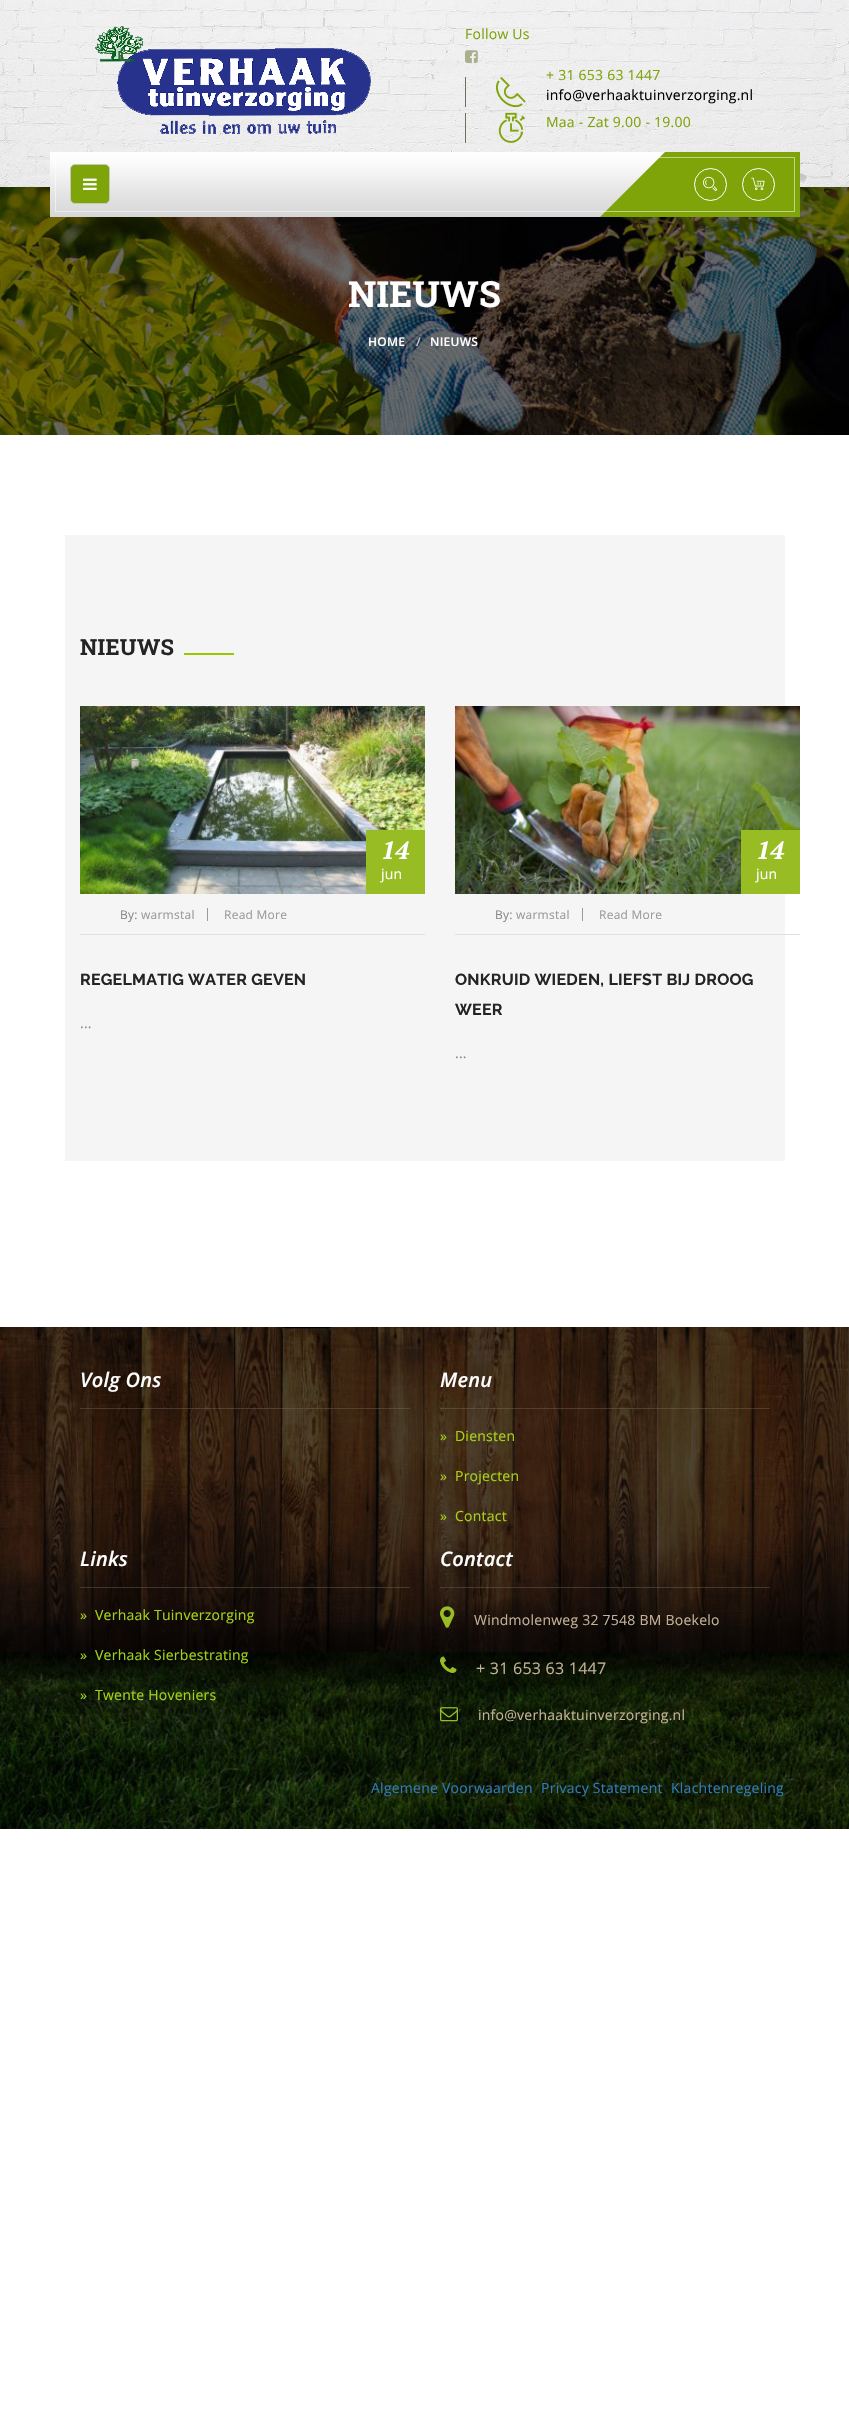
void draw(SkCanvas* canvas) {
	SkPaint fill;
	fill.setAntiAlias(true);
	auto makeFont = [&](const char* family, int weight, float size, bool italic = false) {
		SkFontStyle style(weight, SkFontStyle::kNormal_Width,
			italic ? SkFontStyle::kItalic_Slant : SkFontStyle::kUpright_Slant);
		SkFont result(fontMgr->matchFamilyStyle(family, style), size);
		result.setSubpixel(true);
		return result;
	};
	auto spacedText = [&](const char* s, float x, float y, const SkFont& font, const SkPaint& ink, float letter, float word) {
		std::vector<SkGlyphID> glyphs(font.countText(s, strlen(s), SkTextEncoding::kUTF8));
		std::vector<float> xs(glyphs.size());
		font.textToGlyphs(s, strlen(s), SkTextEncoding::kUTF8, glyphs);
		font.getXPos(glyphs, xs, x);
		float extra = 0;
		for (size_t i = 0; i < glyphs.size(); i++) {
			xs[i] += extra;
			extra += letter + word * (glyphs[i] == font.unicharToGlyph(' '));
		}
		canvas->drawTextBlob(SkTextBlob::MakeFromPosHGlyphs(glyphs, xs, y, font), 0, 0, ink);
	};
	auto box = [&](float l, float t, float r, float b) {
		canvas->drawRect(SkRect::MakeLTRB(l, t, r, b), fill);
	};
	auto picture = [&](const char* path, float l, float t, float r, float b) {
		auto image = SkImages::DeferredFromEncodedData(SkData::MakeFromFileName(path));
		canvas->drawImageRect(image, SkRect::MakeLTRB(l, t, r, b), SkSamplingOptions());
	};
	canvas->clear(0xFFFFFFFF);
	picture("image0.png", 0, 0, 849, 187);
	picture("image1.png", 95, 26, 371, 134);
	picture("image2.png", 465, 50, 478, 64);
	fill.setColor(0xFF6B7261);
	box(465, 77, 466, 107);
	picture("image3.png", 495, 77, 526, 108);
	box(465, 113, 466, 143);
	picture("image4.png", 498, 112, 526, 143);
	picture("image8.png", 0, 187, 849, 435);
	{
		const SkColor colors[] = {0xFFFFFFFF, 0xFFFAFAFA, 0xFFE2E2E2, 0xFFD7D7D7};
		const float stops[] = {0, 0.19f, 0.69f, 1};
		const SkPoint ends[] = {{425, 152}, {425, 217}};
		fill.setShader(SkGradientShader::MakeLinear(ends, colors, stops, 4, SkTileMode::kClamp));
		fill.setAlpha(255);
	}
	box(50, 152, 665, 217);
	fill.setShader(nullptr);
	fill.setColor(0xFF7FA409);
	box(674, 152, 800, 217);
	canvas->drawPath(SkPathBuilder().moveTo(665, 152).lineTo(739, 152).lineTo(674, 217).lineTo(600, 217).close().detach(), fill);
	fill.setStyle(SkPaint::kStroke_Style);
	fill.setStrokeWidth(1);
	fill.setColor(0x80FFFFFF);
	canvas->drawRect(SkRect::MakeLTRB(55.5f, 157.5f, 794.5f, 211.5f), fill);
	fill.setColor(0xFFFFFFFF);
	canvas->drawCircle(710.5f, 184.5f, 16, fill);
	picture("image5.png", 703, 176, 717, 191);
	canvas->drawCircle(758.5f, 184.5f, 16, fill);
	picture("image6.png", 751, 177, 765, 190);
	fill.setStyle(SkPaint::kFill_Style);
	fill.setColor(0xFF7FA409);
	canvas->drawRoundRect(SkRect::MakeLTRB(70.5f, 164.5f, 109.5f, 203.5f), 4.5f, 4.5f, fill);
	fill.setStyle(SkPaint::kStroke_Style);
	fill.setColor(0xFFC4CAB3);
	canvas->drawRoundRect(SkRect::MakeLTRB(70.5f, 164.5f, 109.5f, 203.5f), 4.5f, 4.5f, fill);
	picture("image7.png", 83, 178, 97, 190);
	fill.setStyle(SkPaint::kFill_Style);
	fill.setColor(0xFFF5F5F5);
	box(65, 535, 785, 1161);
	fill.setColor(0xFF99C802);
	box(184, 653, 234, 655);
	picture("image9.png", 80, 706, 425, 894);
	fill.setColor(0xFF98BC24);
	box(366, 830, 425, 894);
	fill.setColor(0xFFE1E1E1);
	box(80, 934, 425, 935);
	fill.setColor(0xFF9A9A99);
	box(207, 908, 208, 921);
	picture("image10.png", 455, 706, 800, 894);
	fill.setColor(0xFF98BC24);
	box(741, 830, 800, 894);
	fill.setColor(0xFFE1E1E1);
	box(455, 934, 800, 935);
	fill.setColor(0xFF9A9A99);
	box(582, 908, 583, 921);
	picture("image11.png", 0, 1327, 849, 1829);
	fill.setColor(0x66796B5D);
	box(80, 1408, 410, 1409);
	box(440, 1408, 770, 1409);
	box(80, 1587, 410, 1588);
	box(440, 1587, 770, 1588);
	picture("image12.png", 440, 1606, 455, 1628);
	picture("image13.png", 440, 1656, 457, 1673);
	picture("image14.png", 440, 1707, 458, 1722);
	auto font1 = makeFont("Open Sans", 400, 14);
	fill.setColor(0xFF7FA409);
	spacedText("Follow Us", 465, 39, font1, fill, 0.25f, 0);
	spacedText("+ 31 653 63 1447", 546, 80, font1, fill, 0.25f, 0);
	fill.setColor(0xFF000000);
	spacedText("info@verhaaktuinverzorging.nl", 546, 100, font1, fill, 0.25f, 0);
	fill.setColor(0xFF7FA409);
	spacedText("Maa - Zat 9.00 - 19.00", 546, 127, font1, fill, 0.25f, 0);
	auto font2 = makeFont("Roboto Slab", 700, 36);
	fill.setColor(0xFFFFFFFF);
	spacedText("NIEUWS", 348, 307, font2, fill, 0.25f, 0);
	auto font3 = makeFont("Open Sans", 600, 12);
	spacedText("HOME", 368, 346, font3, fill, 0.25f, 0);
	fill.setColor(0xFFCCCCCC);
	spacedText("/", 416, 346, font3, fill, 0.25f, 0);
	fill.setColor(0xFFFFFFFF);
	spacedText("NIEUWS", 430, 346, font3, fill, 0.25f, 0);
	auto font4 = makeFont("Roboto Slab", 700, 22);
	fill.setColor(0xFF242424);
	spacedText("NIEUWS", 80, 655, font4, fill, 0.25f, 0);
	auto font5 = makeFont("PT Serif", 700, 25, true);
	fill.setColor(0xFFFFFFFF);
	spacedText("14", 381, 859, font5, fill, 0.25f, 0);
	spacedText("jun", 381, 879, font1, fill, 0.25f, 0);
	auto font6 = makeFont("Open Sans", 400, 12);
	fill.setColor(0xFF898989);
	spacedText("By:", 120, 919, font6, fill, 0.25f, 0);
	fill.setColor(0xFF9A9A99);
	spacedText("warmstal", 141, 919, font6, fill, 0.25f, 0);
	spacedText("Read More", 224, 919, font6, fill, 0.25f, 0);
	auto font7 = makeFont("Raleway", 700, 16);
	fill.setColor(0xFF242424);
	spacedText("REGELMATIG WATER GEVEN", 80, 985, font7, fill, 0.25f, 0);
	fill.setColor(0xFF898989);
	spacedText("...", 80, 1028, font1, fill, 0.25f, 0);
	fill.setColor(0xFFFFFFFF);
	spacedText("14", 756, 859, font5, fill, 0.25f, 0);
	spacedText("jun", 756, 879, font1, fill, 0.25f, 0);
	fill.setColor(0xFF898989);
	spacedText("By:", 495, 919, font6, fill, 0.25f, 0);
	fill.setColor(0xFF9A9A99);
	spacedText("warmstal", 516, 919, font6, fill, 0.25f, 0);
	spacedText("Read More", 599, 919, font6, fill, 0.25f, 0);
	fill.setColor(0xFF242424);
	spacedText("ONKRUID WIEDEN, LIEFST BIJ DROOG", 455, 985, font7, fill, 0.25f, 0);
	spacedText("WEER", 455, 1015, font7, fill, 0.25f, 0);
	fill.setColor(0xFF898989);
	spacedText("...", 455, 1058, font1, fill, 0.25f, 0);
	auto font8 = makeFont("Open Sans", 600, 20, true);
	fill.setColor(0xFFFFFFFF);
	spacedText("Volg Ons", 80, 1387, font8, fill, 0.25f, 0);
	spacedText("Menu", 440, 1387, font8, fill, 0.25f, 0);
	fill.setColor(0xFFA6D119);
	spacedText("»  Diensten", 440, 1441, font1, fill, 0.25f, 0);
	spacedText("»  Projecten", 440, 1481, font1, fill, 0.25f, 0);
	spacedText("»  Contact", 440, 1521, font1, fill, 0.25f, 0);
	fill.setColor(0xFFFFFFFF);
	spacedText("Links", 80, 1566, font8, fill, 0.25f, 0);
	fill.setColor(0xFFA6D119);
	spacedText("»  Verhaak Tuinverzorging", 80, 1620, font1, fill, 0.25f, 0);
	spacedText("»  Verhaak Sierbestrating", 80, 1660, font1, fill, 0.25f, 0);
	spacedText("»  Twente Hoveniers", 80, 1700, font1, fill, 0.25f, 0);
	fill.setColor(0xFFFFFFFF);
	spacedText("Contact", 440, 1566, font8, fill, 0.25f, 0);
	fill.setColor(0xFFC5B199);
	spacedText("Windmolenweg 32 7548 BM Boekelo", 474, 1625, font1, fill, 0.25f, 0);
	auto font9 = makeFont("Open Sans", 400, 16);
	spacedText("+ 31 653 63 1447", 476, 1674, font9, fill, 0.25f, 0);
	spacedText("info@verhaaktuinverzorging.nl", 478, 1720, font1, fill, 0.25f, 0);
	fill.setColor(0xFF337AB7);
	spacedText("Algemene Voorwaarden", 371, 1793, font1, fill, 0.25f, 0);
	spacedText("Privacy Statement", 541, 1793, font1, fill, 0.25f, 0);
	spacedText("Klachtenregeling", 671, 1793, font1, fill, 0.25f, 0);
}
